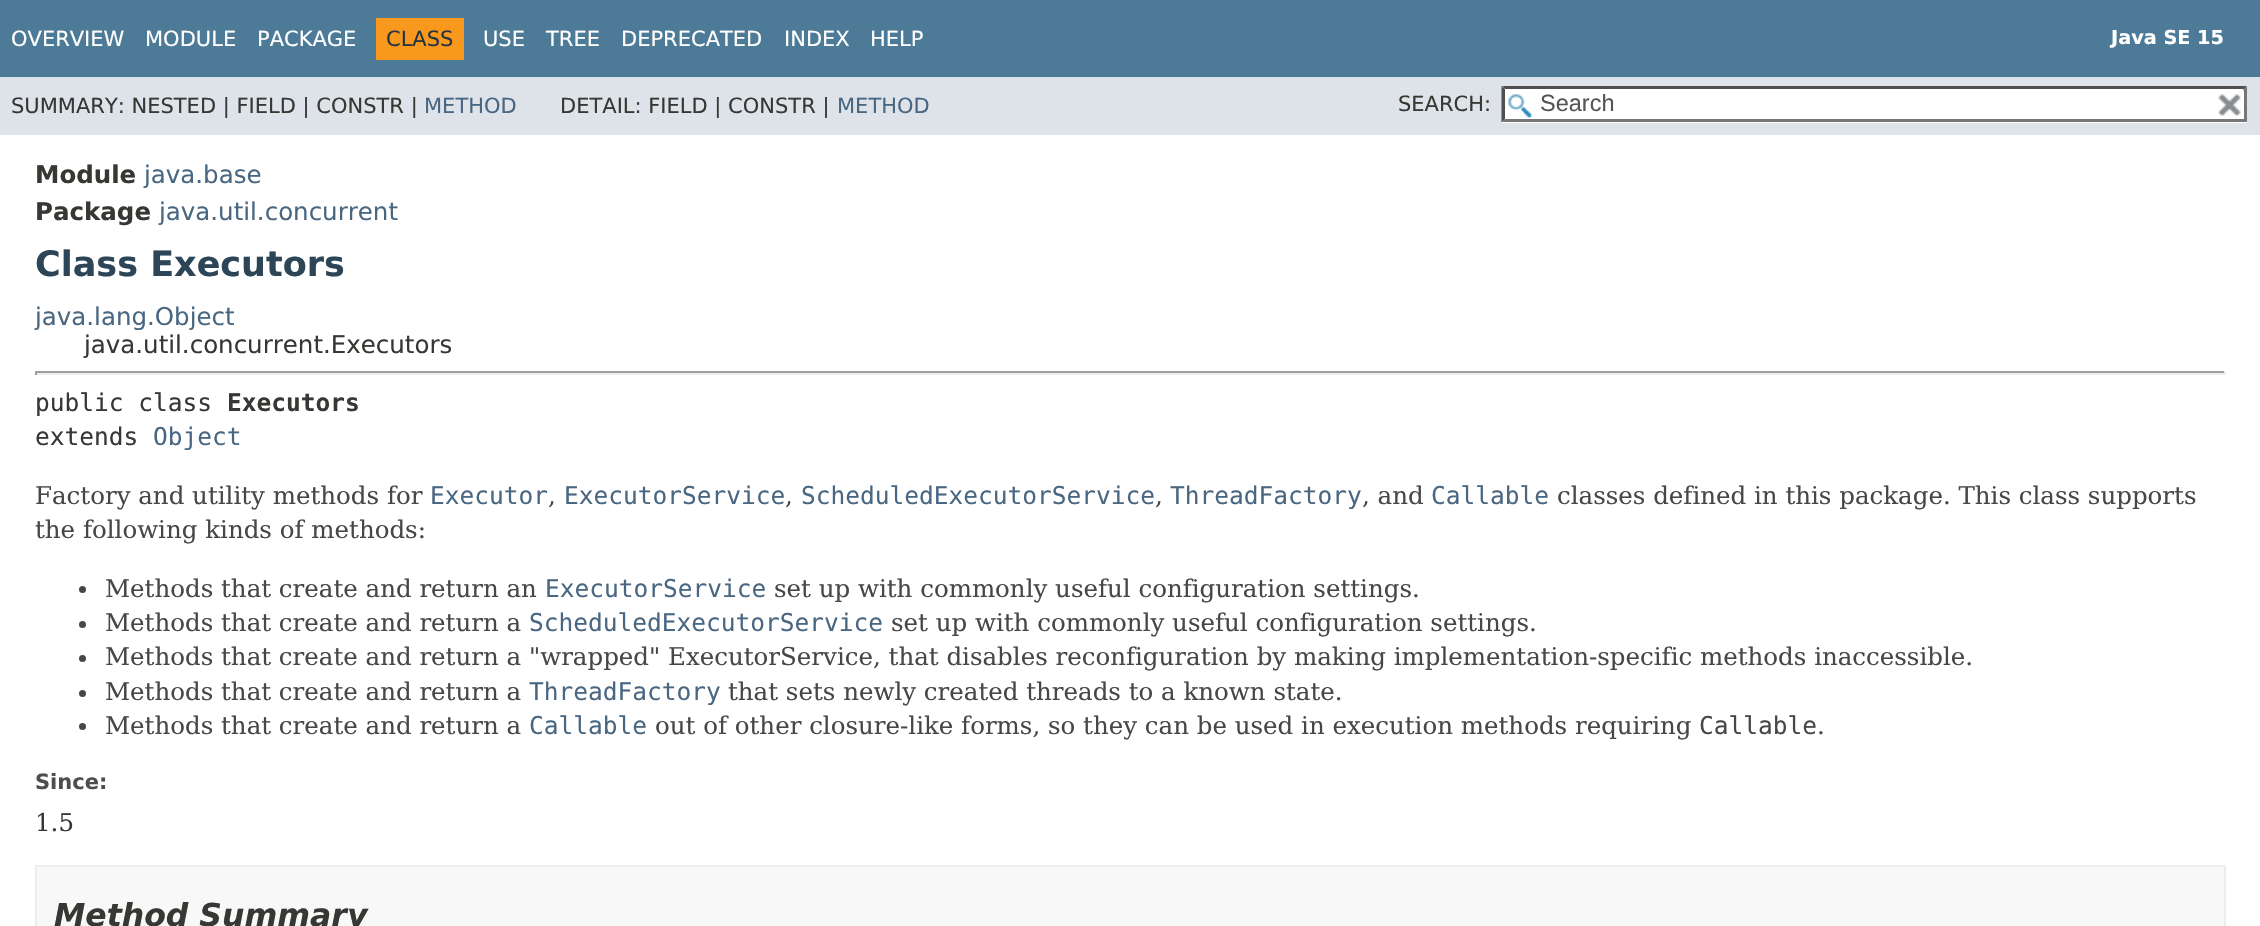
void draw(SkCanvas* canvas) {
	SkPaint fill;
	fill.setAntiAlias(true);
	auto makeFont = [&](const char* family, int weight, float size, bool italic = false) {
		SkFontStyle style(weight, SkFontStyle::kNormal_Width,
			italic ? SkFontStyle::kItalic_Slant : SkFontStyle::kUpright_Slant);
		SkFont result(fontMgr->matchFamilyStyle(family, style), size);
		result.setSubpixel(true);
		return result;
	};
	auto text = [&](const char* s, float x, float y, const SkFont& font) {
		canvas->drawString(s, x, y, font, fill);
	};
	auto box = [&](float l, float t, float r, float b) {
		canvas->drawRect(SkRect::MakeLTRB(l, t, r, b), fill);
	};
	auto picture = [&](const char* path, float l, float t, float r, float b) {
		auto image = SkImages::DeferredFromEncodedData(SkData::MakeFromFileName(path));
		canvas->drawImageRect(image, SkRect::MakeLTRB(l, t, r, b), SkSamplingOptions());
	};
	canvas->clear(0xFFFFFFFF);
	fill.setColor(0xFF4D7A97);
	box(0, 0, 2260, 77);
	fill.setColor(0xFFF8981D);
	box(376, 18, 464, 60);
	fill.setColor(0xFFDEE3E9);
	box(0, 77, 2260, 135);
	fill.setColor(0xFFFFFFFF);
	box(1502, 86, 2247, 123);
	picture("image0.png", 1508, 94, 1532, 118);
	fill.setColor(0xFF4F4F4F);
	canvas->drawPath(SkPathBuilder().moveTo(1502, 86).lineTo(2247, 86).lineTo(2244, 89).lineTo(1505, 89).close().detach(), fill);
	fill.setColor(0xFF767676);
	canvas->drawPath(SkPathBuilder().moveTo(2247, 86).lineTo(2247, 122.5f).lineTo(2243.5f, 119).lineTo(2243.5f, 89).close().detach(), fill);
	canvas->drawPath(SkPathBuilder().moveTo(2247, 122).lineTo(1502, 122).lineTo(1505, 119).lineTo(2244, 119).close().detach(), fill);
	fill.setColor(0xFF4F4F4F);
	canvas->drawPath(SkPathBuilder().moveTo(1501.5f, 122.5f).lineTo(1501.5f, 86).lineTo(1505, 89).lineTo(1505, 119).close().detach(), fill);
	fill.setColor(0xFFFFFFFF);
	box(2243, 91, 2244, 119);
	picture("image1.png", 2218, 94, 2241, 116);
	fill.setColor(0xFF9F9F9F);
	box(35, 371, 2226, 373);
	fill.setColor(0xFFEEEEEE);
	box(2224, 371, 2226, 375);
	box(35, 373, 2226, 375);
	fill.setColor(0xFF9F9F9F);
	box(35, 371, 37, 375);
	fill.setColor(0xFF474747);
	canvas->drawCircle(82.5f, 589.5f, 3.5f, fill);
	canvas->drawCircle(82.5f, 624.5f, 3.5f, fill);
	canvas->drawCircle(82.5f, 658.5f, 3.5f, fill);
	canvas->drawCircle(82.5f, 693.5f, 3.5f, fill);
	canvas->drawCircle(82.5f, 726.5f, 3.5f, fill);
	fill.setColor(0xFFF8F8F8);
	canvas->drawRect(SkRect::MakeLTRB(36, 866, 2225, 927), fill);
	fill.setStyle(SkPaint::kStroke_Style);
	fill.setStrokeWidth(2);
	fill.setColor(0xFFEDEDED);
	canvas->drawRect(SkRect::MakeLTRB(36, 866, 2225, 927), fill);
	auto font1 = makeFont("DejaVu Sans", 400, 21);
	fill.setStyle(SkPaint::kFill_Style);
	fill.setColor(0xFFFFFFFF);
	text("OVERVIEW", 11, 46, font1);
	text("MODULE", 145, 46, font1);
	text("PACKAGE", 257, 46, font1);
	fill.setColor(0xFF253441);
	text("CLASS", 386, 46, font1);
	fill.setColor(0xFFFFFFFF);
	text("USE", 483, 46, font1);
	text("TREE", 546, 46, font1);
	text("DEPRECATED", 621, 46, font1);
	text("INDEX", 784, 46, font1);
	text("HELP", 870, 46, font1);
	auto font2 = makeFont("DejaVu Sans", 700, 19.25f);
	text("Java SE 15", 2111, 44, font2);
	fill.setColor(0xFF353833);
	text("SUMMARY: NESTED | FIELD | CONSTR |", 11, 113, font1);
	fill.setColor(0xFF4A6782);
	text("METHOD", 424, 113, font1);
	fill.setColor(0xFF353833);
	text("DETAIL: FIELD | CONSTR |", 560, 113, font1);
	fill.setColor(0xFF4A6782);
	text("METHOD", 837, 113, font1);
	fill.setColor(0xFF353833);
	text("SEARCH:", 1398, 111, font1);
	auto font3 = makeFont("Liberation Sans", 400, 23.5f);
	fill.setColor(0xFF545454);
	text("Search", 1540, 111, font3);
	auto font4 = makeFont("DejaVu Sans", 700, 24.5f);
	fill.setColor(0xFF353833);
	text("Module", 35, 183, font4);
	auto font5 = makeFont("DejaVu Sans", 400, 24.5f);
	fill.setColor(0xFF4A6782);
	text("java.base", 144, 183, font5);
	fill.setColor(0xFF353833);
	text("Package", 35, 220, font4);
	fill.setColor(0xFF4A6782);
	text("java.util.concurrent", 159, 220, font5);
	auto font6 = makeFont("DejaVu Sans", 700, 35);
	fill.setColor(0xFF2C4557);
	text("Class Executors", 35, 276, font6);
	fill.setColor(0xFF4A6782);
	text("java.lang.Object", 35, 325, font5);
	fill.setColor(0xFF353833);
	text("java.util.concurrent.Executors", 84, 353, font5);
	auto font7 = makeFont("DejaVu Sans Mono", 400, 24.5f);
	text("public class", 35, 411, font7);
	auto font8 = makeFont("DejaVu Sans Mono", 700, 24.5f);
	text("Executors", 227, 411, font8);
	text("extends", 35, 445, font7);
	fill.setColor(0xFF4A6782);
	text("Object", 153, 445, font7);
	auto font9 = makeFont("DejaVu Serif", 400, 24.5f);
	fill.setColor(0xFF474747);
	text("Factory and utility methods for", 35, 504, font9);
	fill.setColor(0xFF4A6782);
	text("Executor", 430, 504, font7);
	fill.setColor(0xFF474747);
	text(",", 548, 504, font9);
	fill.setColor(0xFF4A6782);
	text("ExecutorService", 564, 504, font7);
	fill.setColor(0xFF474747);
	text(",", 785, 504, font9);
	fill.setColor(0xFF4A6782);
	text("ScheduledExecutorService", 801, 504, font7);
	fill.setColor(0xFF474747);
	text(",", 1155, 504, font9);
	fill.setColor(0xFF4A6782);
	text("ThreadFactory", 1170, 504, font7);
	fill.setColor(0xFF474747);
	text(", and", 1362, 504, font9);
	fill.setColor(0xFF4A6782);
	text("Callable", 1431, 504, font7);
	fill.setColor(0xFF474747);
	text("classes defined in this package. This class supports", 1557, 504, font9);
	text("the following kinds of methods:", 35, 538, font9);
	text("Methods that create and return an", 105, 597, font9);
	fill.setColor(0xFF4A6782);
	text("ExecutorService", 545, 597, font7);
	fill.setColor(0xFF474747);
	text("set up with commonly useful configuration settings.", 774, 597, font9);
	text("Methods that create and return a", 105, 631, font9);
	fill.setColor(0xFF4A6782);
	text("ScheduledExecutorService", 529, 631, font7);
	fill.setColor(0xFF474747);
	text("set up with commonly useful configuration settings.", 891, 631, font9);
	text("Methods that create and return a \"wrapped\" ExecutorService, that disables reconfiguration by making implementation-specific methods inaccessible.", 105, 665, font9);
	text("Methods that create and return a", 105, 700, font9);
	fill.setColor(0xFF4A6782);
	text("ThreadFactory", 529, 700, font7);
	fill.setColor(0xFF474747);
	text("that sets newly created threads to a known state.", 728, 700, font9);
	text("Methods that create and return a", 105, 734, font9);
	fill.setColor(0xFF4A6782);
	text("Callable", 529, 734, font7);
	fill.setColor(0xFF474747);
	text("out of other closure-like forms, so they can be used in execution methods requiring", 655, 734, font9);
	text("Callable", 1699, 734, font7);
	text(".", 1817, 734, font9);
	auto font10 = makeFont("DejaVu Sans", 700, 21);
	fill.setColor(0xFF4E4E4E);
	text("Since:", 35, 789, font10);
	fill.setColor(0xFF353833);
	text("1.5", 35, 831, font9);
	auto font11 = makeFont("DejaVu Sans", 700, 31.5f, true);
	text("Method Summary", 54, 926, font11);
}
